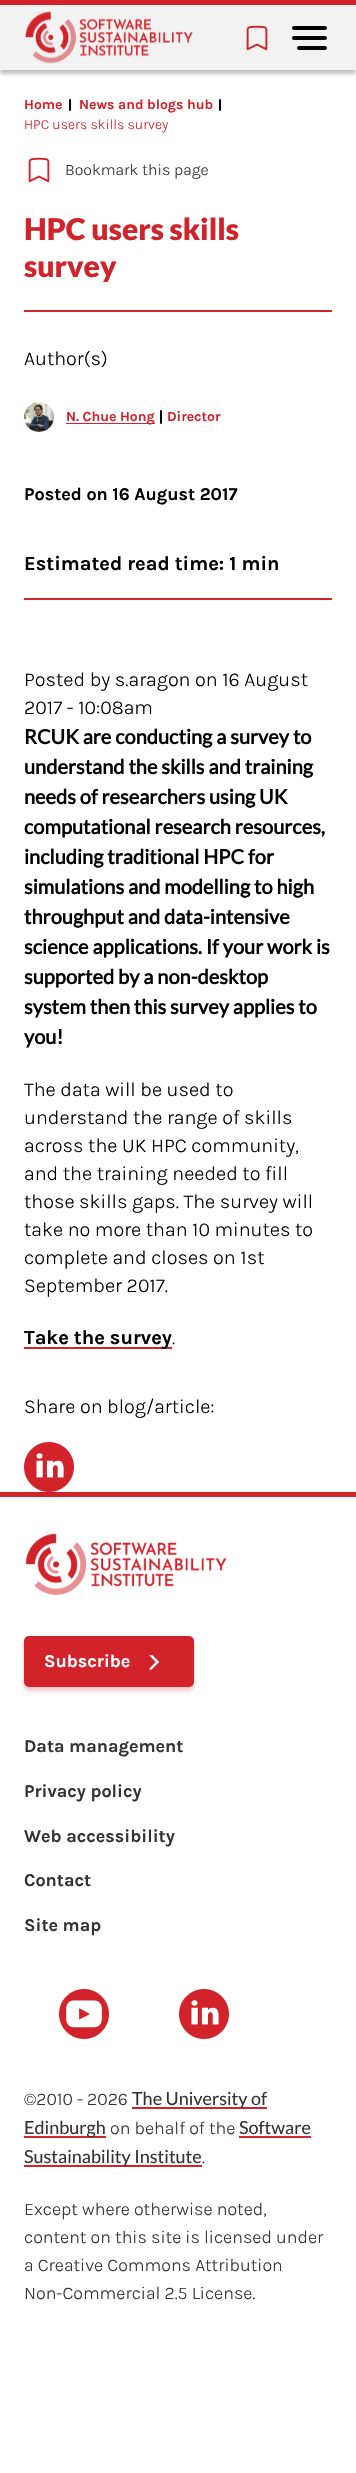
void draw(SkCanvas* canvas) {
	SkPaint fill;
	fill.setAntiAlias(true);
	auto makeFont = [&](const char* family, int weight, float size, bool italic = false) {
		SkFontStyle style(weight, SkFontStyle::kNormal_Width,
			italic ? SkFontStyle::kItalic_Slant : SkFontStyle::kUpright_Slant);
		SkFont result(fontMgr->matchFamilyStyle(family, style), size);
		result.setSubpixel(true);
		return result;
	};
	auto text = [&](const char* s, float x, float y, const SkFont& font) {
		canvas->drawString(s, x, y, font, fill);
	};
	auto box = [&](float l, float t, float r, float b) {
		canvas->drawRect(SkRect::MakeLTRB(l, t, r, b), fill);
	};
	auto roundBox = [&](float l, float t, float r, float b, float radius) {
		canvas->drawRoundRect(SkRect::MakeLTRB(l, t, r, b), radius, radius, fill);
	};
	auto picture = [&](const char* path, float l, float t, float r, float b) {
		auto image = SkImages::DeferredFromEncodedData(SkData::MakeFromFileName(path));
		canvas->drawImageRect(image, SkRect::MakeLTRB(l, t, r, b), SkSamplingOptions());
	};
	canvas->clear(0xFFFFFFFF);
	fill.setColor(0x40000000);
	fill.setMaskFilter(SkMaskFilter::MakeBlur(kNormal_SkBlurStyle, 2));
	canvas->drawRect(SkRect::MakeLTRB(0, 4, 356, 74), fill);
	fill.setMaskFilter(nullptr);
	fill.setColor(0xFFF2F2F2);
	box(0, 5, 356, 70);
	fill.setColor(0xFFD2232A);
	box(0, 0, 356, 5);
	picture("image0.png", 25, 11, 193, 64);
	picture("image1.png", 246, 25, 268, 51);
	fill.setColor(0xFF000000);
	roundBox(292, 26, 327, 30, 2);
	roundBox(292, 36, 327, 40, 2);
	roundBox(297, 46, 327, 50, 2);
	roundBox(69, 99, 71, 111, 1);
	roundBox(219, 99, 221, 111, 1);
	picture("image2.png", 28, 157, 50, 183);
	fill.setColor(0xFFD2232A);
	box(24, 310, 332, 312);
	picture("image3.png", 24, 402, 54, 432);
	{
		const SkColor colors[] = {0xFF000000, 0xFFD2232A};
		const float stops[] = {0, 0.5f};
		const SkPoint ends[] = {{-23, 424}, {155, 424}};
		fill.setShader(SkGradientShader::MakeLinear(ends, colors, stops, 2, SkTileMode::kClamp));
		fill.setAlpha(255);
	}
	box(66, 423, 155, 424);
	fill.setShader(nullptr);
	fill.setColor(0xFF000000);
	roundBox(160, 410, 162, 424, 1);
	fill.setColor(0xFFD2232A);
	box(24, 598, 332, 600);
	{
		const SkColor colors[] = {0xFF000000, 0xFFD2232A};
		const float stops[] = {0, 0.5f};
		const SkPoint ends[] = {{-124, 1348}, {172, 1348}};
		fill.setShader(SkGradientShader::MakeLinear(ends, colors, stops, 2, SkTileMode::kClamp));
		fill.setAlpha(255);
	}
	box(24, 1347, 172, 1349);
	picture("image4.png", 24, 1442, 74, 1492);
	fill.setShader(nullptr);
	fill.setColor(0xFFD2232A);
	box(0, 1492, 356, 1497);
	picture("image5.png", 25, 1533, 227, 1596);
	fill.setColor(0x40D2232A);
	fill.setMaskFilter(SkMaskFilter::MakeBlur(kNormal_SkBlurStyle, 2));
	canvas->drawRoundRect(SkRect::MakeLTRB(24, 1640, 194, 1691), 5, 5, fill);
	fill.setMaskFilter(nullptr);
	{
		const SkColor colors[] = {0xFF333333, 0xFFD2232A};
		const float stops[] = {0.5f, 0.52f};
		const SkPoint ends[] = {{-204, 1559}, {150, 1764}};
		fill.setShader(SkGradientShader::MakeLinear(ends, colors, stops, 2, SkTileMode::kClamp));
		fill.setAlpha(255);
	}
	roundBox(24, 1636, 194, 1687, 5);
	picture("image6.png", 149, 1655, 159, 1670);
	picture("image7.png", 59, 1989, 109, 2039);
	picture("image4.png", 179, 1989, 229, 2039);
	{
		const SkColor colors[] = {0xFF000000, 0xFFD2232A};
		const float stops[] = {0, 0.5f};
		const SkPoint ends[] = {{-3, 2108}, {267, 2108}};
		fill.setShader(SkGradientShader::MakeLinear(ends, colors, stops, 2, SkTileMode::kClamp));
		fill.setAlpha(255);
	}
	box(132, 2107, 267, 2109);
	{
		const SkColor colors[] = {0xFF000000, 0xFFD2232A};
		const float stops[] = {0, 0.5f};
		const SkPoint ends[] = {{-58, 2137}, {106, 2137}};
		fill.setShader(SkGradientShader::MakeLinear(ends, colors, stops, 2, SkTileMode::kClamp));
		fill.setAlpha(255);
	}
	box(24, 2136, 106, 2138);
	{
		const SkColor colors[] = {0xFF000000, 0xFFD2232A};
		const float stops[] = {0, 0.5f};
		const SkPoint ends[] = {{167, 2137}, {311, 2137}};
		fill.setShader(SkGradientShader::MakeLinear(ends, colors, stops, 2, SkTileMode::kClamp));
		fill.setAlpha(255);
	}
	box(239, 2136, 311, 2138);
	{
		const SkColor colors[] = {0xFF000000, 0xFFD2232A};
		const float stops[] = {0, 0.5f};
		const SkPoint ends[] = {{-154, 2166}, {202, 2166}};
		fill.setShader(SkGradientShader::MakeLinear(ends, colors, stops, 2, SkTileMode::kClamp));
		fill.setAlpha(255);
	}
	box(24, 2165, 202, 2167);
	auto font1 = makeFont("Karla", 700, 14);
	fill.setShader(nullptr);
	fill.setColor(0xFFD2232A);
	text("Home", 24, 109, font1);
	text("News and blogs hub", 79, 109, font1);
	auto font2 = makeFont("Karla", 300, 14);
	text("HPC users skills survey", 24, 129, font2);
	auto font3 = makeFont("Karla", 300, 16);
	fill.setColor(0xFF333333);
	text("Bookmark this page", 65, 175, font3);
	auto font4 = makeFont("Lato", 900, 30);
	fill.setColor(0xFFD2232A);
	text("HPC users skills", 24, 240, font4);
	text("survey", 24, 277, font4);
	auto font5 = makeFont("Karla", 300, 20);
	fill.setColor(0xFF000000);
	text("Author(s)", 24, 365, font5);
	fill.setColor(0xFFD2232A);
	text("N. Chue Hong", 66, 421, font1);
	text("Director", 167, 421, font1);
	auto font6 = makeFont("Karla", 700, 18);
	fill.setColor(0xFF000000);
	text("Posted on 16 August 2017", 24, 500, font6);
	auto font7 = makeFont("Karla", 700, 20);
	text("Estimated read time: 1 min", 24, 570, font7);
	text("Posted by s.aragon on 16 August", 24, 686, font5);
	text("2017 - 10:08am", 24, 714, font5);
	auto font8 = makeFont("Lato", 700, 20);
	text("RCUK are conducting a survey to", 24, 744, font8);
	text("understand the skills and training", 24, 774, font8);
	text("needs of researchers using UK", 24, 804, font8);
	text("computational research resources,", 24, 834, font8);
	text("including traditional HPC for", 24, 864, font8);
	text("simulations and modelling to high", 24, 894, font8);
	text("throughput and data-intensive", 24, 924, font8);
	text("science applications. If your work is", 24, 954, font8);
	text("supported by a non-desktop", 24, 984, font8);
	text("system then this survey applies to", 24, 1014, font8);
	text("you!", 24, 1044, font8);
	text("The data will be used to", 24, 1096, font5);
	text("understand the range of skills", 24, 1124, font5);
	text("across the UK HPC community,", 24, 1152, font5);
	text("and the training needed to fill", 24, 1180, font5);
	text("those skills gaps. The survey will", 24, 1208, font5);
	text("take no more than 10 minutes to", 24, 1236, font5);
	text("complete and closes on 1st", 24, 1264, font5);
	text("September 2017.", 24, 1292, font5);
	text("Take the survey", 24, 1344, font7);
	text(".", 172, 1344, font5);
	text("Share on blog/article:", 24, 1413, font5);
	fill.setColor(0xFFFFFFFF);
	text("Subscribe", 44, 1667, font6);
	fill.setColor(0xFF333333);
	text("Data management", 24, 1752, font6);
	text("Privacy policy", 24, 1797, font6);
	text("Web accessibility", 24, 1842, font6);
	text("Contact", 24, 1886, font6);
	text("Site map", 24, 1931, font6);
	auto font9 = makeFont("Karla", 300, 18);
	text("©2010 - 2026", 24, 2105, font9);
	auto font10 = makeFont("Lato", 400, 18);
	text("The University of", 132, 2105, font10);
	text("Edinburgh", 24, 2134, font10);
	text("on behalf of the", 110, 2134, font9);
	text("Software", 239, 2134, font10);
	text("Sustainability Institute", 24, 2163, font10);
	text(".", 202, 2163, font9);
	text("Except where otherwise noted,", 24, 2215, font9);
	text("content on this site is licensed under", 24, 2243, font9);
	text("a Creative Commons Attribution", 24, 2271, font9);
	text("Non-Commercial 2.5 License.", 24, 2299, font9);
}
